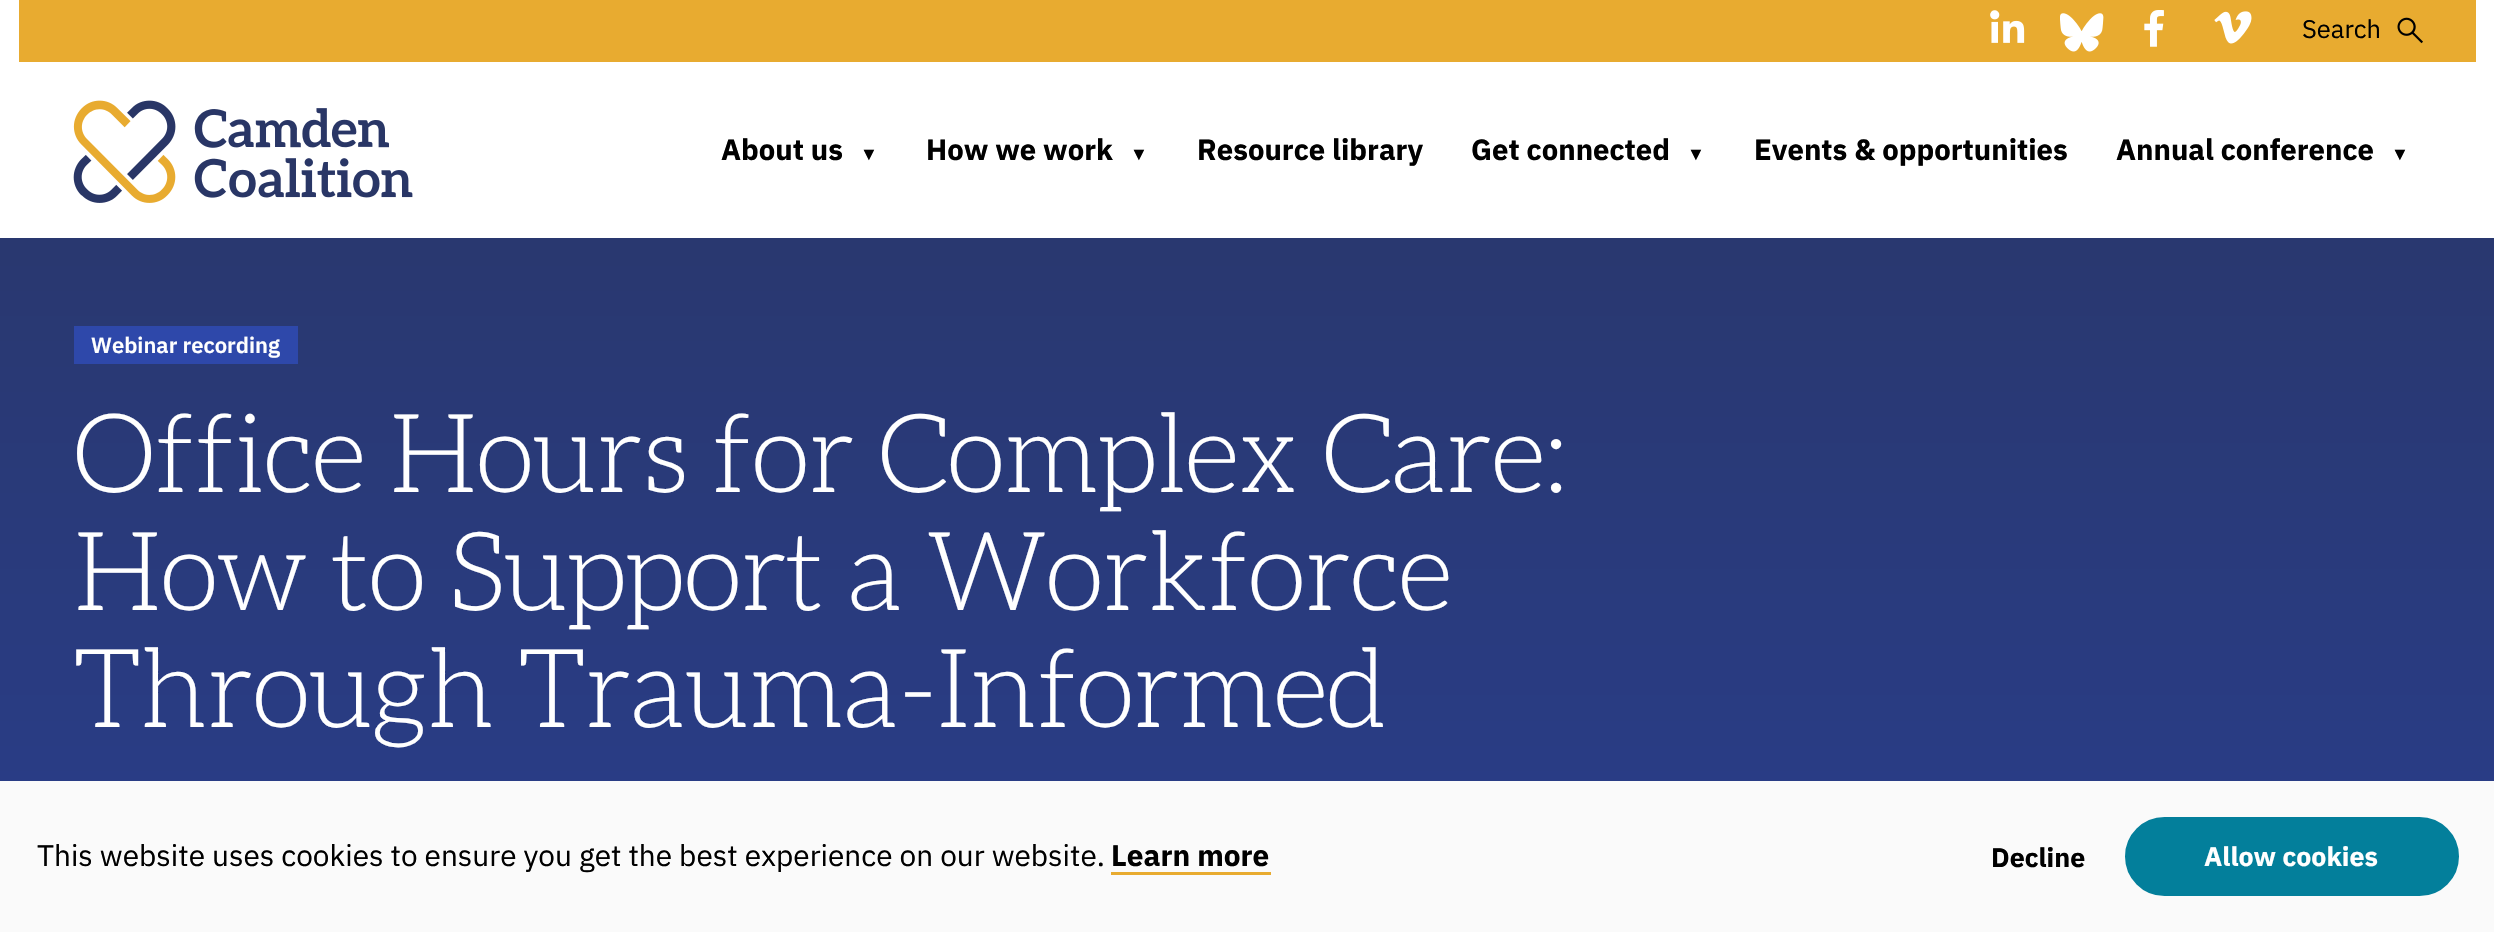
void draw(SkCanvas* canvas) {
	SkPaint fill;
	fill.setAntiAlias(true);
	auto makeFont = [&](const char* family, int weight, float size, bool italic = false) {
		SkFontStyle style(weight, SkFontStyle::kNormal_Width,
			italic ? SkFontStyle::kItalic_Slant : SkFontStyle::kUpright_Slant);
		SkFont result(fontMgr->matchFamilyStyle(family, style), size);
		result.setSubpixel(true);
		return result;
	};
	auto text = [&](const char* s, float x, float y, const SkFont& font) {
		canvas->drawString(s, x, y, font, fill);
	};
	auto spacedText = [&](const char* s, float x, float y, const SkFont& font, const SkPaint& ink, float letter, float word) {
		std::vector<SkGlyphID> glyphs(font.countText(s, strlen(s), SkTextEncoding::kUTF8));
		std::vector<float> xs(glyphs.size());
		font.textToGlyphs(s, strlen(s), SkTextEncoding::kUTF8, glyphs);
		font.getXPos(glyphs, xs, x);
		float extra = 0;
		for (size_t i = 0; i < glyphs.size(); i++) {
			xs[i] += extra;
			extra += letter + word * (glyphs[i] == font.unicharToGlyph(' '));
		}
		canvas->drawTextBlob(SkTextBlob::MakeFromPosHGlyphs(glyphs, xs, y, font), 0, 0, ink);
	};
	auto box = [&](float l, float t, float r, float b) {
		canvas->drawRect(SkRect::MakeLTRB(l, t, r, b), fill);
	};
	auto picture = [&](const char* path, float l, float t, float r, float b) {
		auto image = SkImages::DeferredFromEncodedData(SkData::MakeFromFileName(path));
		canvas->drawImageRect(image, SkRect::MakeLTRB(l, t, r, b), SkSamplingOptions());
	};
	canvas->clear(0xFFFFFFFF);
	picture("image0.png", 73, 100, 413, 203);
	picture("image1.png", 73, 100, 176, 203);
	fill.setColor(0xFFE8AB30);
	box(19, 0, 2476, 62);
	picture("image2.png", 1990, 10, 2025, 43);
	picture("image3.png", 2060, 13, 2104, 52);
	picture("image4.png", 2144, 10, 2164, 47);
	picture("image5.png", 2214, 11, 2252, 44);
	picture("image6.png", 2397, 17, 2423, 44);
	{
		const SkColor colors[] = {0xFF293666, 0xFF293F93};
		const float stops[] = {0, 1};
		const SkPoint ends[] = {{1248, 0}, {1248, 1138}};
		fill.setShader(SkGradientShader::MakeLinear(ends, colors, stops, 2, SkTileMode::kClamp));
		fill.setAlpha(255);
	}
	box(0, 238, 2494, 781);
	fill.setShader(nullptr);
	fill.setColor(0xFF2E48AA);
	box(74, 326, 298, 364);
	fill.setColor(0xFFFAFAFA);
	box(0, 781, 2494, 932);
	fill.setColor(0xFFE8AB30);
	box(1111, 872, 1271, 875);
	fill.setColor(0xFF037F9B);
	canvas->drawRoundRect(SkRect::MakeLTRB(2127, 819, 2457, 894), 37.5f, 37.5f, fill);
	fill.setStyle(SkPaint::kStroke_Style);
	fill.setStrokeWidth(4);
	canvas->drawRoundRect(SkRect::MakeLTRB(2127, 819, 2457, 894), 37.5f, 37.5f, fill);
	auto font1 = makeFont("IBM Plex Sans", 400, 25.5f);
	fill.setStyle(SkPaint::kFill_Style);
	fill.setColor(0xFF000000);
	text("Search", 2302, 38, font1);
	auto font2 = makeFont("IBM Plex Sans", 700, 29.25f);
	text("About us", 721, 160, font2);
	auto font3 = makeFont("Liberation Sans", 700, 18);
	text("▼", 860, 160, font3);
	text("How we work", 926, 160, font2);
	text("▼", 1130, 160, font3);
	text("Resource library", 1197, 160, font2);
	text("Get connected", 1471, 160, font2);
	text("▼", 1687, 160, font3);
	text("Events & opportunities", 1754, 160, font2);
	text("Annual conference", 2116, 160, font2);
	text("▼", 2391, 160, font3);
	auto font4 = makeFont("IBM Plex Sans", 600, 22);
	fill.setColor(0xFFFFFFFF);
	text("Webinar recording", 91, 353, font4);
	auto font5 = makeFont("Aleo", 300, 109.6f);
	spacedText("Office Hours for Complex Care:", 73, 492, font5, fill, -1.85f, 0);
	spacedText("How to Support a Workforce", 73, 610, font5, fill, -1.85f, 0);
	spacedText("Through Trauma-Informed", 73, 727, font5, fill, -1.85f, 0);
	auto font6 = makeFont("IBM Plex Sans", 400, 29.75f);
	fill.setColor(0xFF000000);
	text("This website uses cookies to ensure you get the best experience on our website.", 37, 866, font6);
	auto font7 = makeFont("IBM Plex Sans", 700, 29.75f);
	text("Learn more", 1111, 866, font7);
	auto font8 = makeFont("IBM Plex Sans", 700, 26.75f);
	text("Decline", 1991, 867, font8);
	fill.setColor(0xFFFFFFFF);
	text("Allow cookies", 2204, 866, font8);
}
